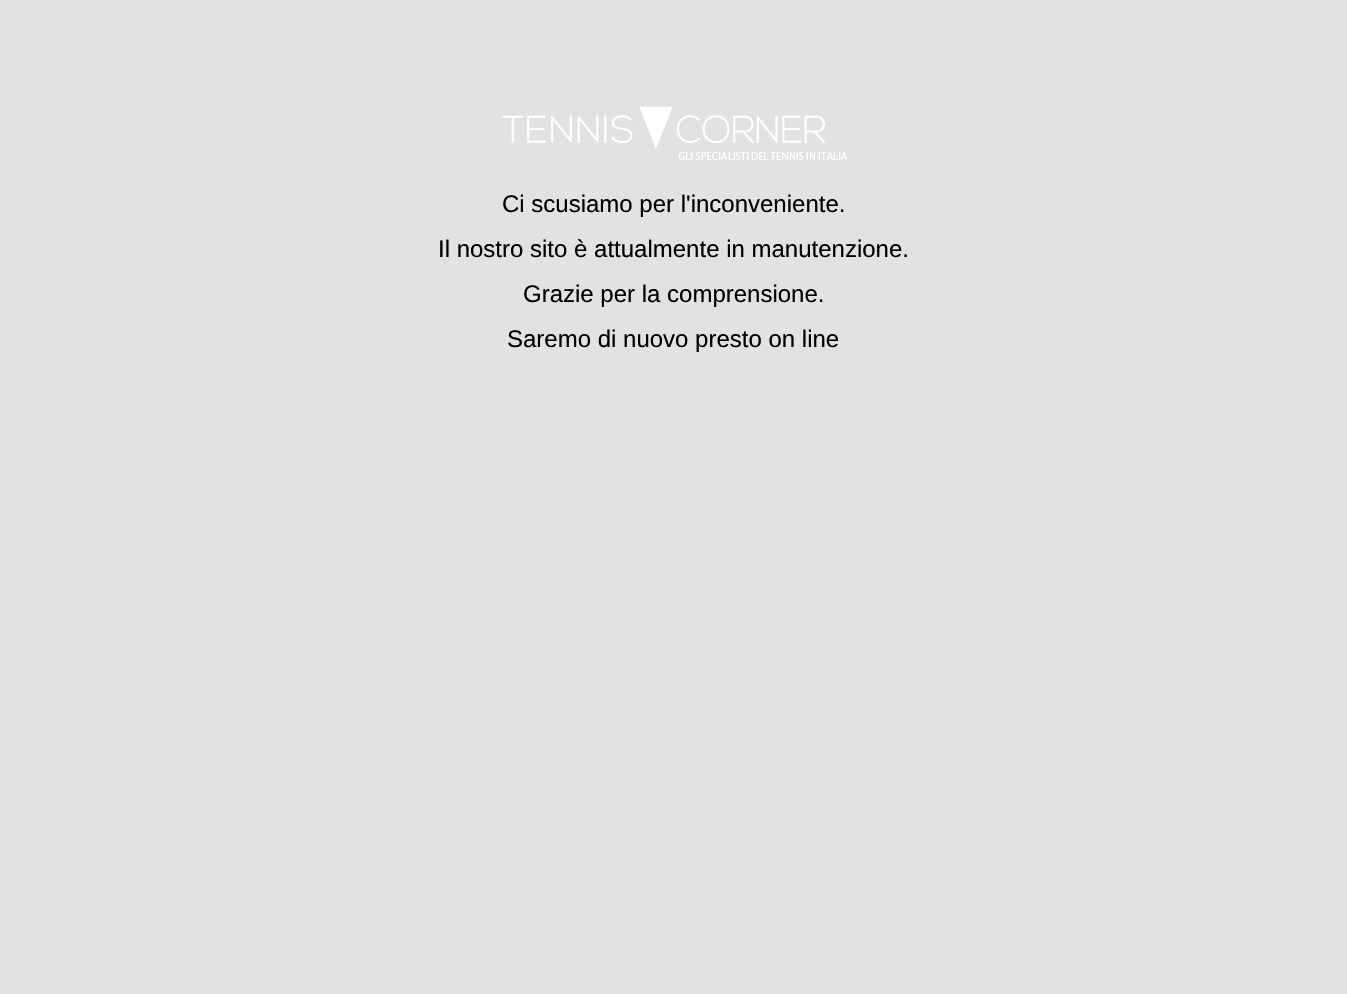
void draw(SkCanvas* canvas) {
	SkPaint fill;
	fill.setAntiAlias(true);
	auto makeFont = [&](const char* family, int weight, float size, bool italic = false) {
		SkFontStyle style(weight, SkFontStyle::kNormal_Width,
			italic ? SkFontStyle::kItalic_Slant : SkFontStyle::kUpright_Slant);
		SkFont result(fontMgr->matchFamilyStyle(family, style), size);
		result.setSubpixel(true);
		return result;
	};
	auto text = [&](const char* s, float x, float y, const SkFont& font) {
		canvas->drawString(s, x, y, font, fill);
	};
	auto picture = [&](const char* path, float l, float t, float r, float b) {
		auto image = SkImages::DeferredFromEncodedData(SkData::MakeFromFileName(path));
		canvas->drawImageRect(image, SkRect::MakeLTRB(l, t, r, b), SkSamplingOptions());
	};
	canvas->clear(0xFFE2E2E2);
	picture("image0.png", 502, 106, 847, 160);
	auto font1 = makeFont("Liberation Sans", 400, 24);
	fill.setColor(0xFF000000);
	text("Ci scusiamo per l'inconveniente.", 502, 212, font1);
	text("Il nostro sito è attualmente in manutenzione.", 438, 257, font1);
	text("Grazie per la comprensione.", 523, 302, font1);
	text("Saremo di nuovo presto on line", 507, 347, font1);
}
